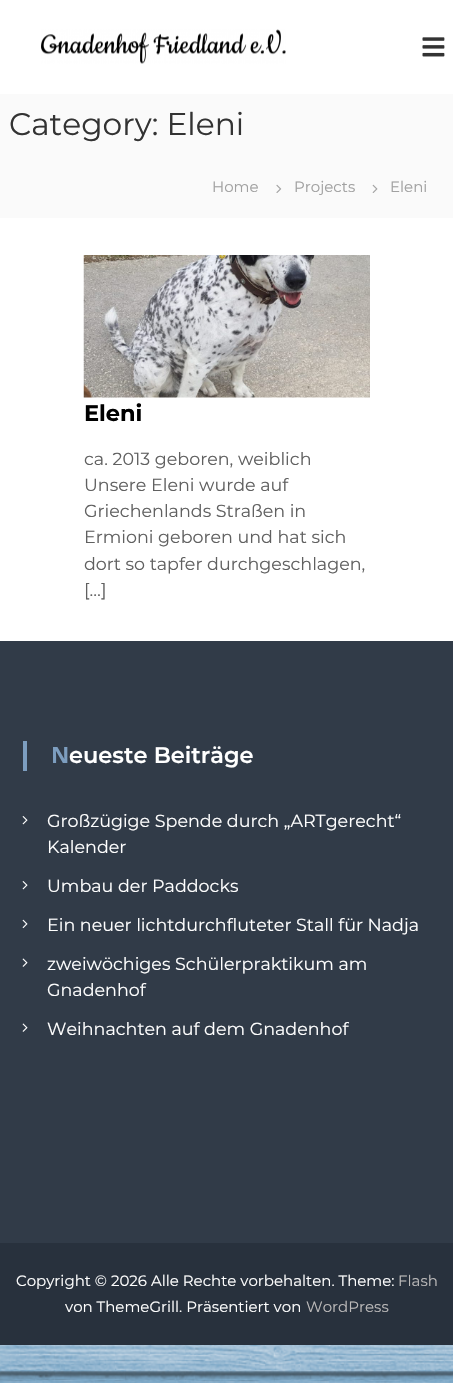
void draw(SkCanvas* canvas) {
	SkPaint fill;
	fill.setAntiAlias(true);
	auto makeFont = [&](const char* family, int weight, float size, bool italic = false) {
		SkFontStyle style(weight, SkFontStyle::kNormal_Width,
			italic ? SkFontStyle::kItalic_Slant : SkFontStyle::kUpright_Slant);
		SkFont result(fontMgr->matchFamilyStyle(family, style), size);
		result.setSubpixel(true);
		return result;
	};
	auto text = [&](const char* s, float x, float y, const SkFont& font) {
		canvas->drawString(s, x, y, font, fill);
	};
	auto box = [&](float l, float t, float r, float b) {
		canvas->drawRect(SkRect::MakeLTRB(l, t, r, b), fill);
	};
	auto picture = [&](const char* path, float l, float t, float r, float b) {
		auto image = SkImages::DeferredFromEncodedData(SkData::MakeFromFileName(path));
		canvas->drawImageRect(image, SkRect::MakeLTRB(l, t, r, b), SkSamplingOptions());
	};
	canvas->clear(0xFFFFFFFF);
	picture("image0.png", 0, 1345, 453, 1383);
	picture("image1.png", 41, 29, 286, 64);
	picture("image2.png", 422, 37, 445, 57);
	fill.setColor(0xFFFAFAFA);
	box(0, 94, 453, 218);
	picture("image3.png", 276, 184, 282, 193);
	picture("image4.png", 372, 184, 378, 193);
	picture("image5.png", 83, 255, 370, 398);
	fill.setColor(0xFF313B48);
	box(0, 641, 453, 1243);
	fill.setColor(0xFF7D9EC0);
	box(23, 741, 27, 771);
	picture("image6.png", 22, 816, 28, 825);
	picture("image6.png", 22, 881, 28, 890);
	picture("image7.png", 22, 919, 28, 929);
	picture("image8.png", 22, 958, 28, 967);
	picture("image8.png", 22, 1023, 28, 1032);
	fill.setColor(0xFF28313D);
	box(0, 1243, 453, 1345);
	auto font1 = makeFont("Montserrat", 400, 31.25f);
	fill.setColor(0xFF333333);
	text("Category: Eleni", 9, 135, font1);
	auto font2 = makeFont("Montserrat", 400, 15);
	fill.setColor(0xFFA1A1A1);
	text("Home", 212, 192, font2);
	text("Projects", 294, 192, font2);
	text("Eleni", 390, 192, font2);
	auto font3 = makeFont("Montserrat", 700, 22.5f);
	fill.setColor(0xFF000000);
	text("Eleni", 84, 421, font3);
	auto font4 = makeFont("Montserrat", 400, 17.5f);
	fill.setColor(0xFF606060);
	text("ca. 2013 geboren, weiblich", 84, 465, font4);
	text("Unsere Eleni wurde auf", 84, 491, font4);
	text("Griechenlands Straßen in", 84, 517, font4);
	text("Ermioni geboren und hat sich", 84, 543, font4);
	text("dort so tapfer durchgeschlagen,", 84, 570, font4);
	text("[…]", 84, 596, font4);
	auto font5 = makeFont("Noto Sans", 700, 22.5f);
	fill.setColor(0xFF7D9EC0);
	text("N", 51, 763, font5);
	auto font6 = makeFont("Montserrat", 600, 22.5f);
	fill.setColor(0xFFFFFFFF);
	text("eueste Beiträge", 69, 763, font6);
	text("Großzügige Spende durch „ARTgerecht“", 47, 827, font4);
	text("Kalender", 47, 853, font4);
	text("Umbau der Paddocks", 47, 892, font4);
	text("Ein neuer lichtdurchfluteter Stall für Nadja", 47, 931, font4);
	text("zweiwöchiges Schülerpraktikum am", 47, 970, font4);
	text("Gnadenhof", 47, 996, font4);
	text("Weihnachten auf dem Gnadenhof", 47, 1035, font4);
	text("Copyright © 2026 Alle Rechte vorbehalten. Theme:", 16, 1286, font2);
	fill.setColor(0xFFBCBABA);
	text("Flash", 398, 1286, font2);
	fill.setColor(0xFFFFFFFF);
	text("von ThemeGrill. Präsentiert von", 65, 1312, font2);
	fill.setColor(0xFFBCBABA);
	text("WordPress", 306, 1312, font2);
}
